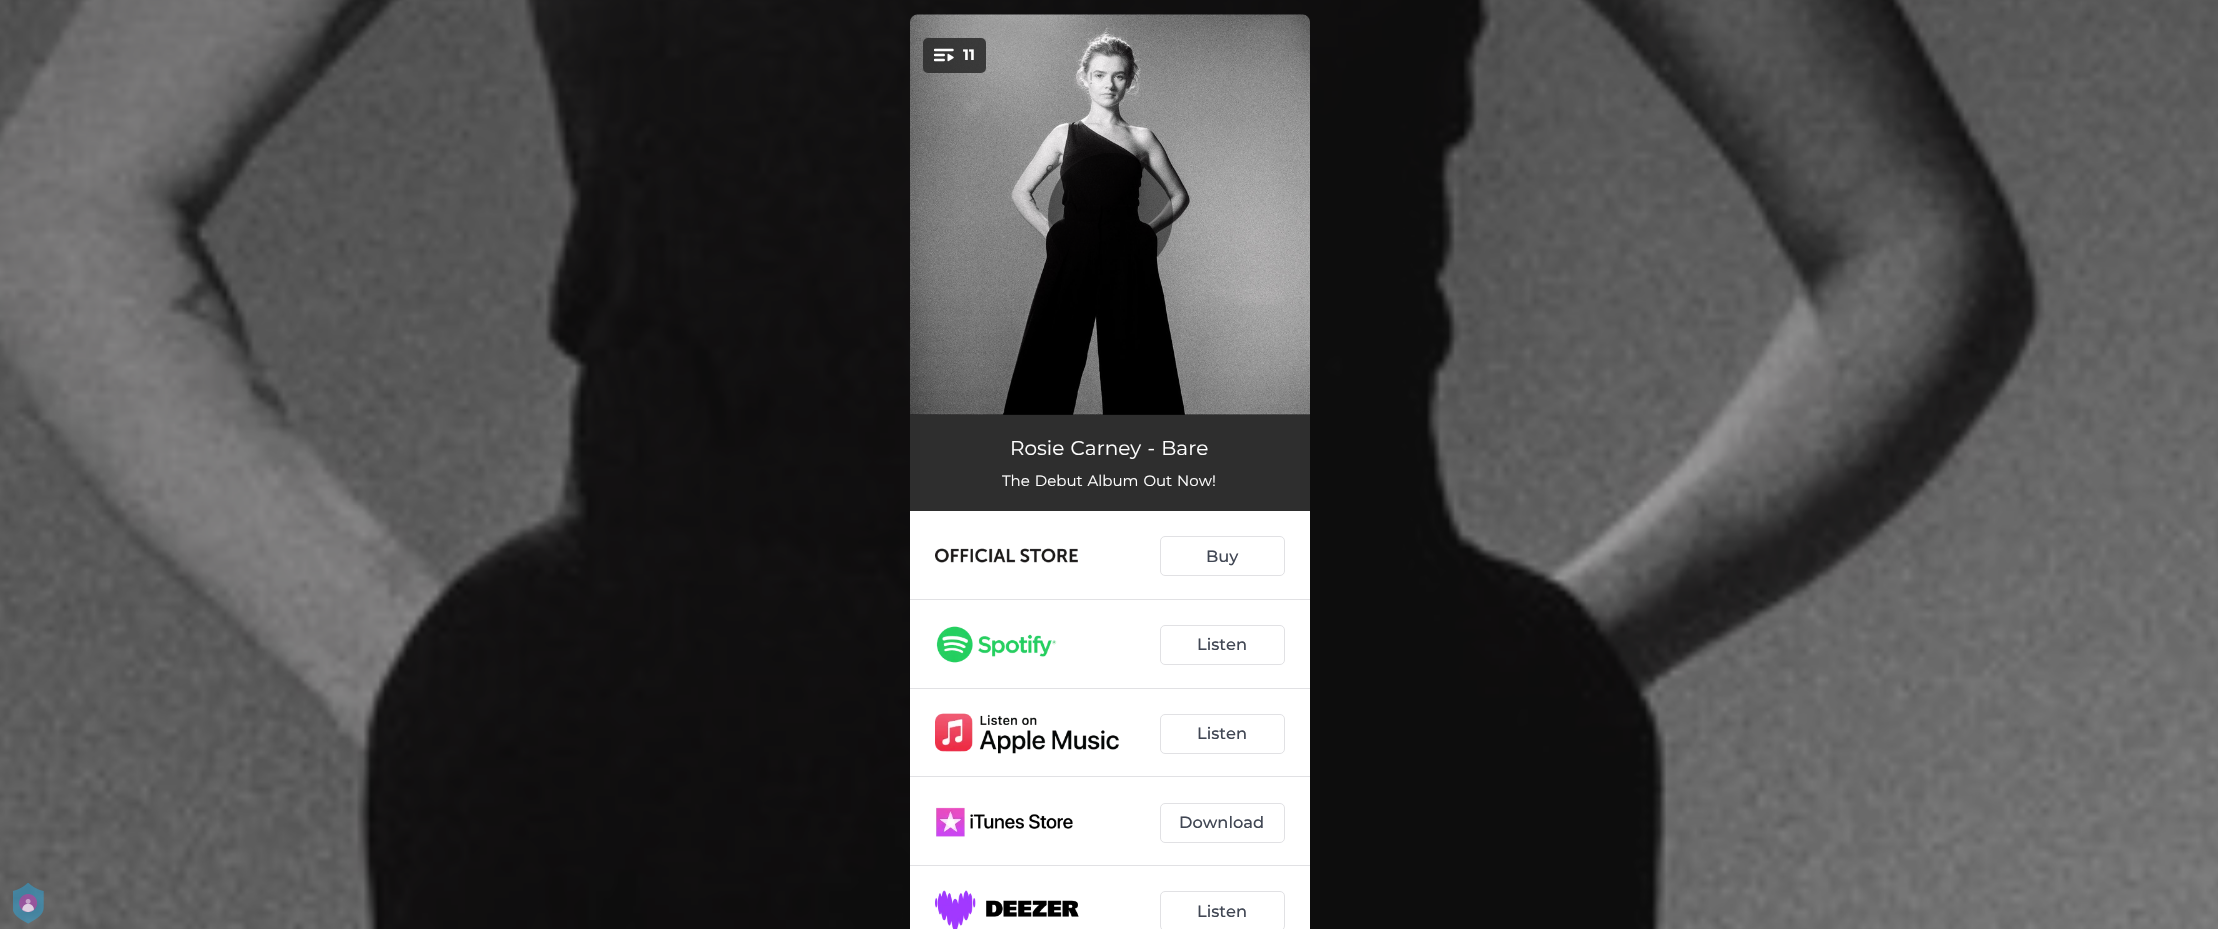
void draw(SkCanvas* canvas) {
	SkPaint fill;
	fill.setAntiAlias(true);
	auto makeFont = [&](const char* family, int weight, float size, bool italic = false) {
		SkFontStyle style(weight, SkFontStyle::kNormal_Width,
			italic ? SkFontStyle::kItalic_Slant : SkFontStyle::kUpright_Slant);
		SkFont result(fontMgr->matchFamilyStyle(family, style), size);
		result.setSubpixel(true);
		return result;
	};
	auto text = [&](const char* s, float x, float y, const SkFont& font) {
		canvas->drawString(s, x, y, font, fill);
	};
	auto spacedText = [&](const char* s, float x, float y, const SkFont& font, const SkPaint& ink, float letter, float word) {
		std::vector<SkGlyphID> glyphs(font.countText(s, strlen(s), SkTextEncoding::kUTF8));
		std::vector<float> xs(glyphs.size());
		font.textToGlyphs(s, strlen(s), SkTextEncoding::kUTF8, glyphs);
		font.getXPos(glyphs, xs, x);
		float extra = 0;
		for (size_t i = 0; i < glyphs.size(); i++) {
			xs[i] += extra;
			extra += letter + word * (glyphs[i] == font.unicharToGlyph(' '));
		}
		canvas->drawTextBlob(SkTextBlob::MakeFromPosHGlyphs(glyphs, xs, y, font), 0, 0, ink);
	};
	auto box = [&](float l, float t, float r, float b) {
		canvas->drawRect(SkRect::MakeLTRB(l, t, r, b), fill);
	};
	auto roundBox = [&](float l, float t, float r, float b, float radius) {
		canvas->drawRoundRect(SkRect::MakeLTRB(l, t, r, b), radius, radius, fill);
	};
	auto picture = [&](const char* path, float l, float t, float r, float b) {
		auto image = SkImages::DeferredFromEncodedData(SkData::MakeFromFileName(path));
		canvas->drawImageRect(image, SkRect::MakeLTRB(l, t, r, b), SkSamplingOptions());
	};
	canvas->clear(0xFFFFFFFF);
	picture("image1.png", 0, 0, 2218, 929);
	picture("image0.png", 13, 883, 44, 924);
	picture("image2.png", 910, 14, 1310, 415);
	fill.setColor(0xD9282828);
	roundBox(923, 38, 986, 73, 5);
	picture("image3.png", 934, 48, 954, 62);
	fill.setColor(0x73000000);
	canvas->drawCircle(1110.5f, 215.5f, 62.5f, fill);
	fill.setColor(0xFF2E2E2E);
	box(910, 415, 1310, 511);
	fill.setColor(0xFFFFFFFF);
	box(910, 511, 1310, 929);
	fill.setColor(0xFFE1E1E4);
	box(910, 599, 1310, 600);
	picture("image4.png", 935, 548, 1078, 563);
	fill.setStyle(SkPaint::kStroke_Style);
	fill.setStrokeWidth(1);
	canvas->drawRoundRect(SkRect::MakeLTRB(1160.5f, 536.5f, 1284.5f, 575.5f), 4.5f, 4.5f, fill);
	fill.setStyle(SkPaint::kFill_Style);
	box(910, 688, 1310, 689);
	picture("image5.png", 936, 626, 1057, 663);
	fill.setStyle(SkPaint::kStroke_Style);
	canvas->drawRoundRect(SkRect::MakeLTRB(1160.5f, 625.5f, 1284.5f, 664.5f), 4.5f, 4.5f, fill);
	fill.setStyle(SkPaint::kFill_Style);
	box(910, 776, 1310, 777);
	picture("image6.png", 935, 713, 1119, 754);
	fill.setStyle(SkPaint::kStroke_Style);
	canvas->drawRoundRect(SkRect::MakeLTRB(1160.5f, 714.5f, 1284.5f, 753.5f), 4.5f, 4.5f, fill);
	fill.setStyle(SkPaint::kFill_Style);
	box(910, 865, 1310, 866);
	picture("image7.png", 936, 807, 1073, 837);
	fill.setStyle(SkPaint::kStroke_Style);
	canvas->drawRoundRect(SkRect::MakeLTRB(1160.5f, 803.5f, 1284.5f, 842.5f), 4.5f, 4.5f, fill);
	picture("image8.png", 935, 890, 1079, 929);
	canvas->drawRoundRect(SkRect::MakeLTRB(1160.5f, 891.5f, 1284.5f, 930.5f), 4.5f, 4.5f, fill);
	auto font1 = makeFont("Montserrat", 700, 15);
	fill.setStyle(SkPaint::kFill_Style);
	fill.setColor(0xFFFFFFFF);
	text("11", 963, 60, font1);
	auto font2 = makeFont("Montserrat", 400, 16.25f);
	fill.setColor(0xFFA4A3A4);
	spacedText("!", 1089, 84, font2, fill, 0, 1);
	auto font3 = makeFont("Montserrat", 400, 20);
	fill.setColor(0xFFFFFFFF);
	spacedText("Rosie Carney - Bare", 1010, 455, font3, fill, 0, 1);
	auto font4 = makeFont("Montserrat", 400, 15);
	spacedText("The Debut Album Out Now!", 1002, 486, font4, fill, 0, 1);
	auto font5 = makeFont("Montserrat", 500, 16.25f);
	fill.setColor(0xFF414754);
	text("Buy", 1206, 562, font5);
	text("Listen", 1197, 650, font5);
	text("Listen", 1197, 739, font5);
	text("Download", 1179, 828, font5);
	text("Listen", 1197, 917, font5);
}
